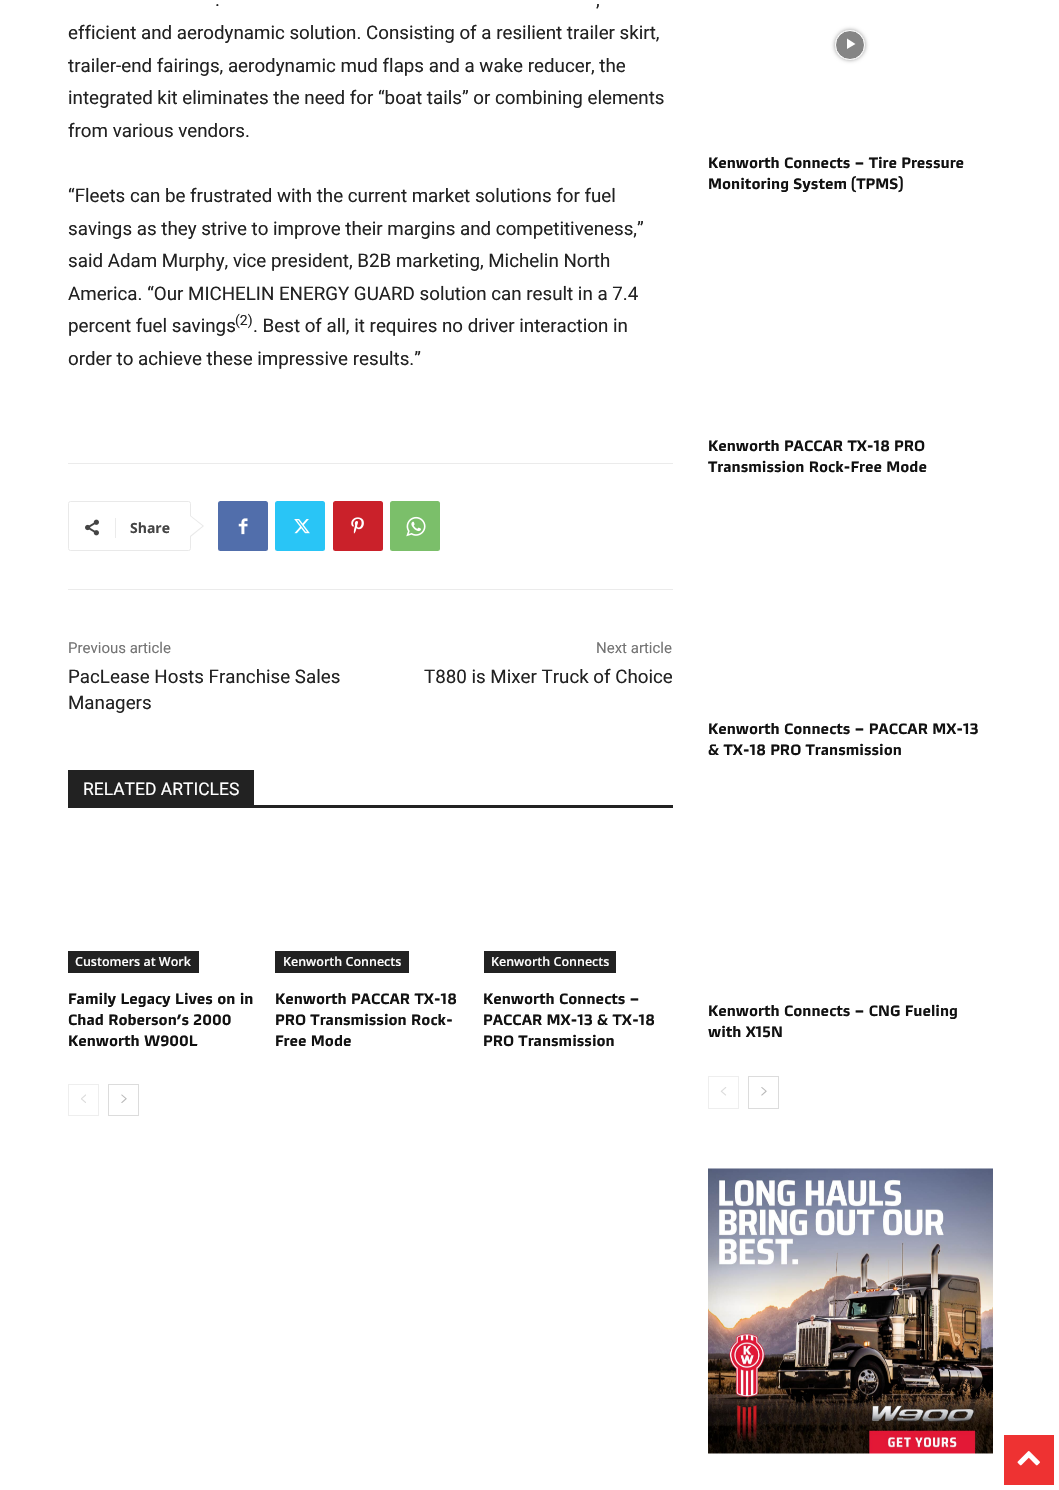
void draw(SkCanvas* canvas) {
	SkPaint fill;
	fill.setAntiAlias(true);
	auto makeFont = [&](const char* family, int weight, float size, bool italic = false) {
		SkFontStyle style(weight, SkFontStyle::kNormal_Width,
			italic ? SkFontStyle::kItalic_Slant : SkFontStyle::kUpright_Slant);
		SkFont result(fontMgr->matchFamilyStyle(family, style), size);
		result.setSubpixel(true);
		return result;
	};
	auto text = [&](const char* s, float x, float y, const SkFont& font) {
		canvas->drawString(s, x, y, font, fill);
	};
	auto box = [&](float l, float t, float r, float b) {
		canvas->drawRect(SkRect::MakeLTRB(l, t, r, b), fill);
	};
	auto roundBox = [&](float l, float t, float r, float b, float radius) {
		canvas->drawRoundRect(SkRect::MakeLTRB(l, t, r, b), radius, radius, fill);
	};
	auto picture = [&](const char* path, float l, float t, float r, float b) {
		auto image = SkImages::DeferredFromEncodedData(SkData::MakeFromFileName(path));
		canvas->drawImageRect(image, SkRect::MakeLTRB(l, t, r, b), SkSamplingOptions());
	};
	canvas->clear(0xFFFFFFFF);
	fill.setColor(0xFFEBEBEB);
	box(68, 463, 673, 464);
	fill.setStyle(SkPaint::kStroke_Style);
	fill.setStrokeWidth(1);
	fill.setColor(0xFFE9E9E9);
	canvas->drawRoundRect(SkRect::MakeLTRB(68.5f, 501.5f, 190.5f, 550.5f), 2, 2, fill);
	fill.setStyle(SkPaint::kFill_Style);
	canvas->drawPath(SkPathBuilder().moveTo(190, 537.5f).lineTo(190, 515).lineTo(204, 526).close().detach(), fill);
	picture("image0.png", 85, 519, 99, 536);
	fill.setColor(0xFFEBEBEB);
	box(115, 518, 116, 538);
	fill.setColor(0xFFFFFFFF);
	canvas->drawPath(SkPathBuilder().moveTo(190, 536).lineTo(190, 516).lineTo(202.5f, 526).close().detach(), fill);
	fill.setColor(0xFF516EAB);
	roundBox(218, 501, 268, 551, 2.5f);
	picture("image1.png", 238, 518, 248, 535);
	fill.setColor(0xFF29C5F6);
	roundBox(275, 501, 325, 551, 2.5f);
	picture("image2.png", 294, 519, 310, 534);
	fill.setColor(0xFFCA212A);
	roundBox(333, 501, 383, 551, 2.5f);
	picture("image3.png", 351, 517, 364, 534);
	fill.setColor(0xFF7BBF6A);
	roundBox(390, 501, 440, 551, 2.5f);
	picture("image4.png", 406, 516, 426, 537);
	fill.setColor(0xFFEBEBEB);
	box(68, 589, 673, 590);
	fill.setColor(0xFF222222);
	box(68, 805, 673, 808);
	box(68, 770, 254, 805);
	box(68, 951, 199, 973);
	box(275, 951, 409, 973);
	box(484, 951, 616, 973);
	fill.setStyle(SkPaint::kStroke_Style);
	fill.setColor(0xFFEEEEEE);
	canvas->drawRect(SkRect::MakeLTRB(68.5f, 1084.5f, 98.5f, 1115.5f), fill);
	picture("image5.png", 81, 1094, 86, 1103);
	fill.setColor(0xFFDCDCDC);
	canvas->drawRect(SkRect::MakeLTRB(108.5f, 1084.5f, 138.5f, 1115.5f), fill);
	picture("image6.png", 121, 1094, 127, 1103);
	canvas->save();
	canvas->clipPath(SkPathBuilder(SkPathFillType::kEvenOdd).moveTo(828, 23).lineTo(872, 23).lineTo(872, 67).lineTo(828, 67).close().moveTo(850, 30).cubicTo(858.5f, 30, 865, 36.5f, 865, 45).cubicTo(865, 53.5f, 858.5f, 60, 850, 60).cubicTo(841.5f, 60, 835, 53.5f, 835, 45).cubicTo(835, 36.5f, 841.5f, 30, 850, 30).close().detach(), true);
	fill.setStyle(SkPaint::kFill_Style);
	fill.setColor(0x66000000);
	fill.setMaskFilter(SkMaskFilter::MakeBlur(kNormal_SkBlurStyle, 2));
	canvas->drawRoundRect(SkRect::MakeLTRB(835, 30, 865, 60), 15, 15, fill);
	fill.setMaskFilter(nullptr);
	canvas->restore();
	fill.setColor(0x7A000000);
	canvas->drawCircle(850, 45, 14.5f, fill);
	fill.setStyle(SkPaint::kStroke_Style);
	fill.setColor(0xFFFFFFFF);
	canvas->drawCircle(850, 45, 14.5f, fill);
	fill.setStyle(SkPaint::kFill_Style);
	canvas->drawPath(SkPathBuilder().moveTo(847, 38.5f).lineTo(847, 49).lineTo(855.5f, 44).close().detach(), fill);
	fill.setStyle(SkPaint::kStroke_Style);
	fill.setColor(0xFFEEEEEE);
	canvas->drawRect(SkRect::MakeLTRB(708.5f, 1076.5f, 738.5f, 1108.5f), fill);
	picture("image7.png", 720, 1087, 727, 1096);
	fill.setColor(0xFFDCDCDC);
	canvas->drawRect(SkRect::MakeLTRB(748.5f, 1076.5f, 778.5f, 1108.5f), fill);
	picture("image8.png", 761, 1087, 767, 1096);
	picture("image9.png", 708, 1168, 993, 1454);
	fill.setStyle(SkPaint::kFill_Style);
	fill.setColor(0xFFEE3232);
	box(1004, 1435, 1054, 1485);
	picture("image10.png", 1017, 1451, 1040, 1466);
	auto font1 = makeFont("Roboto", 400, 18.75f);
	fill.setColor(0xFF222222);
	text(".", 215, 6, font1);
	text(",", 596, 6, font1);
	text("efficient and aerodynamic solution. Consisting of a resilient trailer skirt,", 68, 39, font1);
	text("trailer-end fairings, aerodynamic mud flaps and a wake reducer, the", 68, 72, font1);
	text("integrated kit eliminates the need for “boat tails” or combining elements", 68, 104, font1);
	text("from various vendors.", 68, 137, font1);
	text("“Fleets can be frustrated with the current market solutions for fuel", 68, 202, font1);
	text("savings as they strive to improve their margins and competitiveness,”", 68, 235, font1);
	text("said Adam Murphy, vice president, B2B marketing, Michelin North", 68, 267, font1);
	text("America. “Our MICHELIN ENERGY GUARD solution can result in a 7.4", 68, 300, font1);
	text("percent fuel savings", 68, 332, font1);
	auto font2 = makeFont("Roboto", 400, 14);
	text("(2)", 235, 325, font2);
	text(". Best of all, it requires no driver interaction in", 253, 332, font1);
	text("order to achieve these impressive results.”", 68, 365, font1);
	auto font3 = makeFont("Open Sans", 700, 14);
	fill.setColor(0xFF444444);
	text("Share", 130, 533, font3);
	auto font4 = makeFont("Roboto", 400, 15);
	fill.setColor(0xFF747474);
	text("Previous article", 68, 653, font4);
	fill.setColor(0xFF222222);
	text("PacLease Hosts Franchise Sales", 68, 683, font1);
	text("Managers", 68, 709, font1);
	fill.setColor(0xFF747474);
	text("Next article", 596, 653, font4);
	fill.setColor(0xFF222222);
	text("T880 is Mixer Truck of Choice", 424, 683, font1);
	auto font5 = makeFont("Roboto", 400, 17.5f);
	fill.setColor(0xFFFFFFFF);
	text("RELATED ARTICLES", 83, 795, font5);
	auto font6 = makeFont("Open Sans", 600, 12.5f);
	text("Customers at Work", 75, 966, font6);
	auto font7 = makeFont("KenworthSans", 700, 15);
	fill.setColor(0xFF111111);
	text("Family Legacy Lives on in", 68, 1004, font7);
	text("Chad Roberson’s 2000", 68, 1025, font7);
	text("Kenworth W900L", 68, 1046, font7);
	fill.setColor(0xFFFFFFFF);
	text("Kenworth Connects", 283, 966, font6);
	fill.setColor(0xFF111111);
	text("Kenworth PACCAR TX-18", 275, 1004, font7);
	text("PRO Transmission Rock-", 275, 1025, font7);
	text("Free Mode", 275, 1046, font7);
	fill.setColor(0xFFFFFFFF);
	text("Kenworth Connects", 491, 966, font6);
	fill.setColor(0xFF111111);
	text("Kenworth Connects –", 483, 1004, font7);
	text("PACCAR MX-13 & TX-18", 483, 1025, font7);
	text("PRO Transmission", 483, 1046, font7);
	text("Kenworth Connects – Tire Pressure", 708, 168, font7);
	text("Monitoring System (TPMS)", 708, 189, font7);
	text("Kenworth PACCAR TX-18 PRO", 708, 451, font7);
	text("Transmission Rock-Free Mode", 708, 472, font7);
	text("Kenworth Connects – PACCAR MX-13", 708, 734, font7);
	text("& TX-18 PRO Transmission", 708, 755, font7);
	text("Kenworth Connects – CNG Fueling", 708, 1016, font7);
	text("with X15N", 708, 1037, font7);
}
